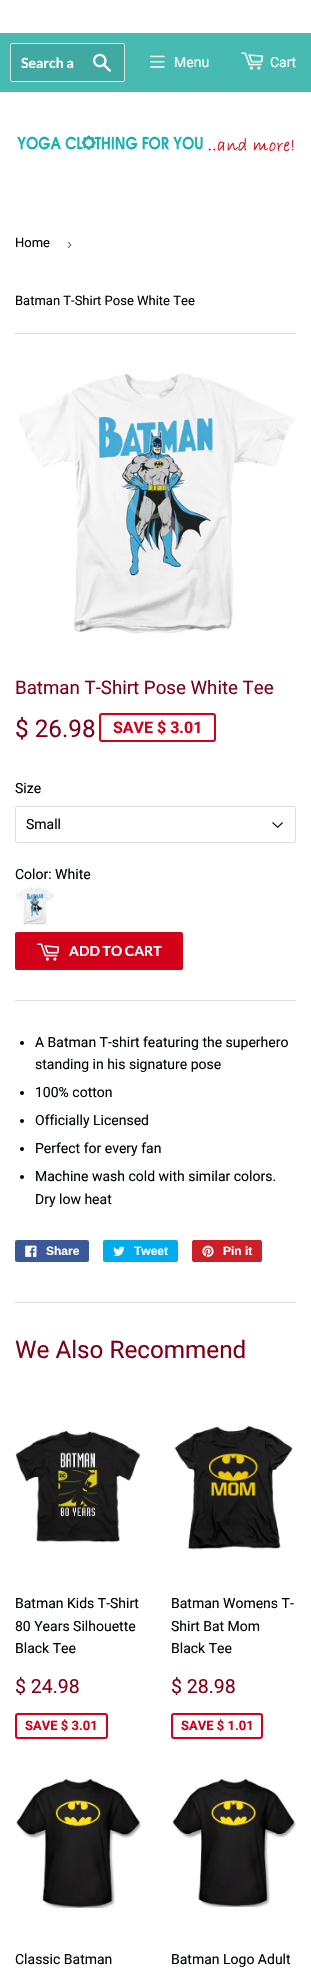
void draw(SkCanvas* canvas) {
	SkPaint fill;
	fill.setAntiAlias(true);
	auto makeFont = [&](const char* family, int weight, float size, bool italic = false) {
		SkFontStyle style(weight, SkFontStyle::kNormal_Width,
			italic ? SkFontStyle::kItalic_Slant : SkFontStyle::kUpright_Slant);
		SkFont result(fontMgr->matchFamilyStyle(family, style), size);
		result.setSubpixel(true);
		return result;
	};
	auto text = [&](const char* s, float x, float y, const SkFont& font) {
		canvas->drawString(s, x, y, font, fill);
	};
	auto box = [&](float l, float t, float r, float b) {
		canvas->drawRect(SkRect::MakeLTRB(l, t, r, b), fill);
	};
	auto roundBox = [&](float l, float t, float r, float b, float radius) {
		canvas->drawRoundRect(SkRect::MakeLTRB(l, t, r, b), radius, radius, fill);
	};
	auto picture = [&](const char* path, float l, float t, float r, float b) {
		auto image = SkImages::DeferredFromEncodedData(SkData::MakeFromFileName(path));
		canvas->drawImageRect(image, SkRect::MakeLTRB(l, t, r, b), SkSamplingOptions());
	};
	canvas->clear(0xFFFFFFFF);
	fill.setColor(0xFF47BBB2);
	box(0, 33, 311, 92);
	fill.setColor(0xFF40A9A1);
	canvas->drawRoundRect(SkRect::MakeLTRB(10.5f, 43.5f, 124.5f, 81.5f), 1.5f, 1.5f, fill);
	fill.setStyle(SkPaint::kStroke_Style);
	fill.setStrokeWidth(1);
	fill.setColor(0xFFDEDEDE);
	canvas->drawRoundRect(SkRect::MakeLTRB(10.5f, 43.5f, 124.5f, 81.5f), 1.5f, 1.5f, fill);
	picture("image0.png", 93, 53, 111, 72);
	picture("image1.png", 150, 55, 165, 68);
	picture("image2.png", 241, 52, 264, 70);
	picture("image3.png", 17, 135, 294, 151);
	fill.setStyle(SkPaint::kFill_Style);
	box(15, 333, 296, 334);
	picture("image4.png", 18, 373, 295, 634);
	picture("image5.png", 128, 476, 184, 534);
	fill.setStyle(SkPaint::kStroke_Style);
	fill.setStrokeWidth(2);
	fill.setColor(0xFFD20019);
	canvas->drawRoundRect(SkRect::MakeLTRB(100, 714, 215, 741), 2, 2, fill);
	picture("image6.png", 272, 822, 283, 828);
	fill.setStrokeWidth(1);
	fill.setColor(0xFFDEDEDE);
	canvas->drawRoundRect(SkRect::MakeLTRB(15.5f, 806.5f, 295.5f, 842.5f), 1.5f, 1.5f, fill);
	picture("image7.png", 16, 887, 55, 925);
	fill.setStyle(SkPaint::kFill_Style);
	fill.setColor(0xFFD20019);
	roundBox(15, 932, 183, 970, 2);
	picture("image8.png", 37, 943, 60, 961);
	fill.setColor(0xFFDEDEDE);
	box(15, 1000, 296, 1001);
	fill.setColor(0xFF000505);
	canvas->drawCircle(22, 1043, 2, fill);
	canvas->drawCircle(22, 1093, 2, fill);
	canvas->drawCircle(22, 1121, 2, fill);
	canvas->drawCircle(22, 1149, 2, fill);
	canvas->drawCircle(22, 1177, 2, fill);
	fill.setColor(0xFF3B5998);
	roundBox(15, 1240, 89, 1262, 2);
	picture("image9.png", 25, 1245, 37, 1257);
	fill.setColor(0xFF00ACED);
	roundBox(103, 1240, 178, 1262, 2);
	picture("image10.png", 113, 1246, 125, 1256);
	fill.setColor(0xFFCB2027);
	roundBox(192, 1240, 262, 1262, 2);
	picture("image11.png", 202, 1245, 214, 1257);
	fill.setColor(0xFFDEDEDE);
	box(15, 1302, 296, 1303);
	picture("image12.png", 15, 1431, 141, 1543);
	fill.setStyle(SkPaint::kStroke_Style);
	fill.setStrokeWidth(2);
	fill.setColor(0xFFD20019);
	canvas->drawRoundRect(SkRect::MakeLTRB(16, 1714, 107, 1738), 2, 2, fill);
	picture("image13.png", 174, 1425, 293, 1550);
	canvas->drawRoundRect(SkRect::MakeLTRB(172, 1714, 262, 1738), 2, 2, fill);
	picture("image14.png", 16, 1778, 141, 1908);
	picture("image15.png", 172, 1778, 296, 1907);
	auto font1 = makeFont("Lato", 700, 14);
	fill.setStyle(SkPaint::kFill_Style);
	fill.setColor(0xFFFFFFFF);
	text("Search a", 21, 68, font1);
	auto font2 = makeFont("Roboto", 400, 14);
	text("Menu", 174, 67, font2);
	text("Cart", 270, 67, font2);
	auto font3 = makeFont("Roboto", 400, 13);
	fill.setColor(0xFF000505);
	text("Home", 15, 247, font3);
	auto font4 = makeFont("Liberation Sans", 400, 15);
	fill.setColor(0xFF767676);
	text("›", 67, 249, font4);
	fill.setColor(0xFF000505);
	text("Batman T-Shirt Pose White Tee", 15, 305, font3);
	auto font5 = makeFont("Roboto", 400, 18.7f);
	fill.setColor(0xFF810019);
	text("Batman T-Shirt Pose White Tee", 15, 694, font5);
	auto font6 = makeFont("Roboto", 400, 24.25f);
	text("$ 26.98", 15, 737, font6);
	auto font7 = makeFont("Roboto", 700, 16);
	fill.setColor(0xFFD20019);
	text("SAVE $ 3.01", 113, 733, font7);
	fill.setColor(0xFF000505);
	text("Size", 15, 793, font2);
	text("Small", 26, 829, font2);
	text("Color: White", 15, 879, font2);
	fill.setColor(0xFFFFFFFF);
	text("ADD TO CART", 69, 956, font1);
	fill.setColor(0xFF000505);
	text("A Batman T-shirt featuring the superhero", 35, 1047, font2);
	text("standing in his signature pose", 35, 1069, font2);
	text("100% cotton", 35, 1097, font2);
	text("Officially Licensed", 35, 1125, font2);
	text("Perfect for every fan", 35, 1153, font2);
	text("Machine wash cold with similar colors.", 35, 1181, font2);
	text("Dry low heat", 35, 1204, font2);
	auto font8 = makeFont("Liberation Sans", 700, 12);
	fill.setColor(0xFFFFFFFF);
	text("Share", 46, 1255, font8);
	text("Tweet", 134, 1255, font8);
	text("Pin it", 223, 1255, font8);
	fill.setColor(0xFF810019);
	text("We Also Recommend", 15, 1358, font6);
	fill.setColor(0xFF000505);
	text("Batman Kids T-Shirt", 15, 1608, font2);
	text("80 Years Silhouette", 15, 1631, font2);
	text("Black Tee", 15, 1653, font2);
	auto font9 = makeFont("Roboto", 400, 19.5f);
	fill.setColor(0xFF810019);
	text("$ 24.98", 15, 1693, font9);
	auto font10 = makeFont("Roboto", 700, 13);
	fill.setColor(0xFFD20019);
	text("SAVE $ 3.01", 25, 1730, font10);
	fill.setColor(0xFF000505);
	text("Batman Womens T-", 171, 1608, font2);
	text("Shirt Bat Mom", 171, 1631, font2);
	text("Black Tee", 171, 1653, font2);
	fill.setColor(0xFF810019);
	text("$ 28.98", 171, 1693, font9);
	fill.setColor(0xFFD20019);
	text("SAVE $ 1.01", 181, 1730, font10);
	fill.setColor(0xFF000505);
	text("Classic Batman", 15, 1964, font2);
	text("Batman Logo Adult", 171, 1964, font2);
}
